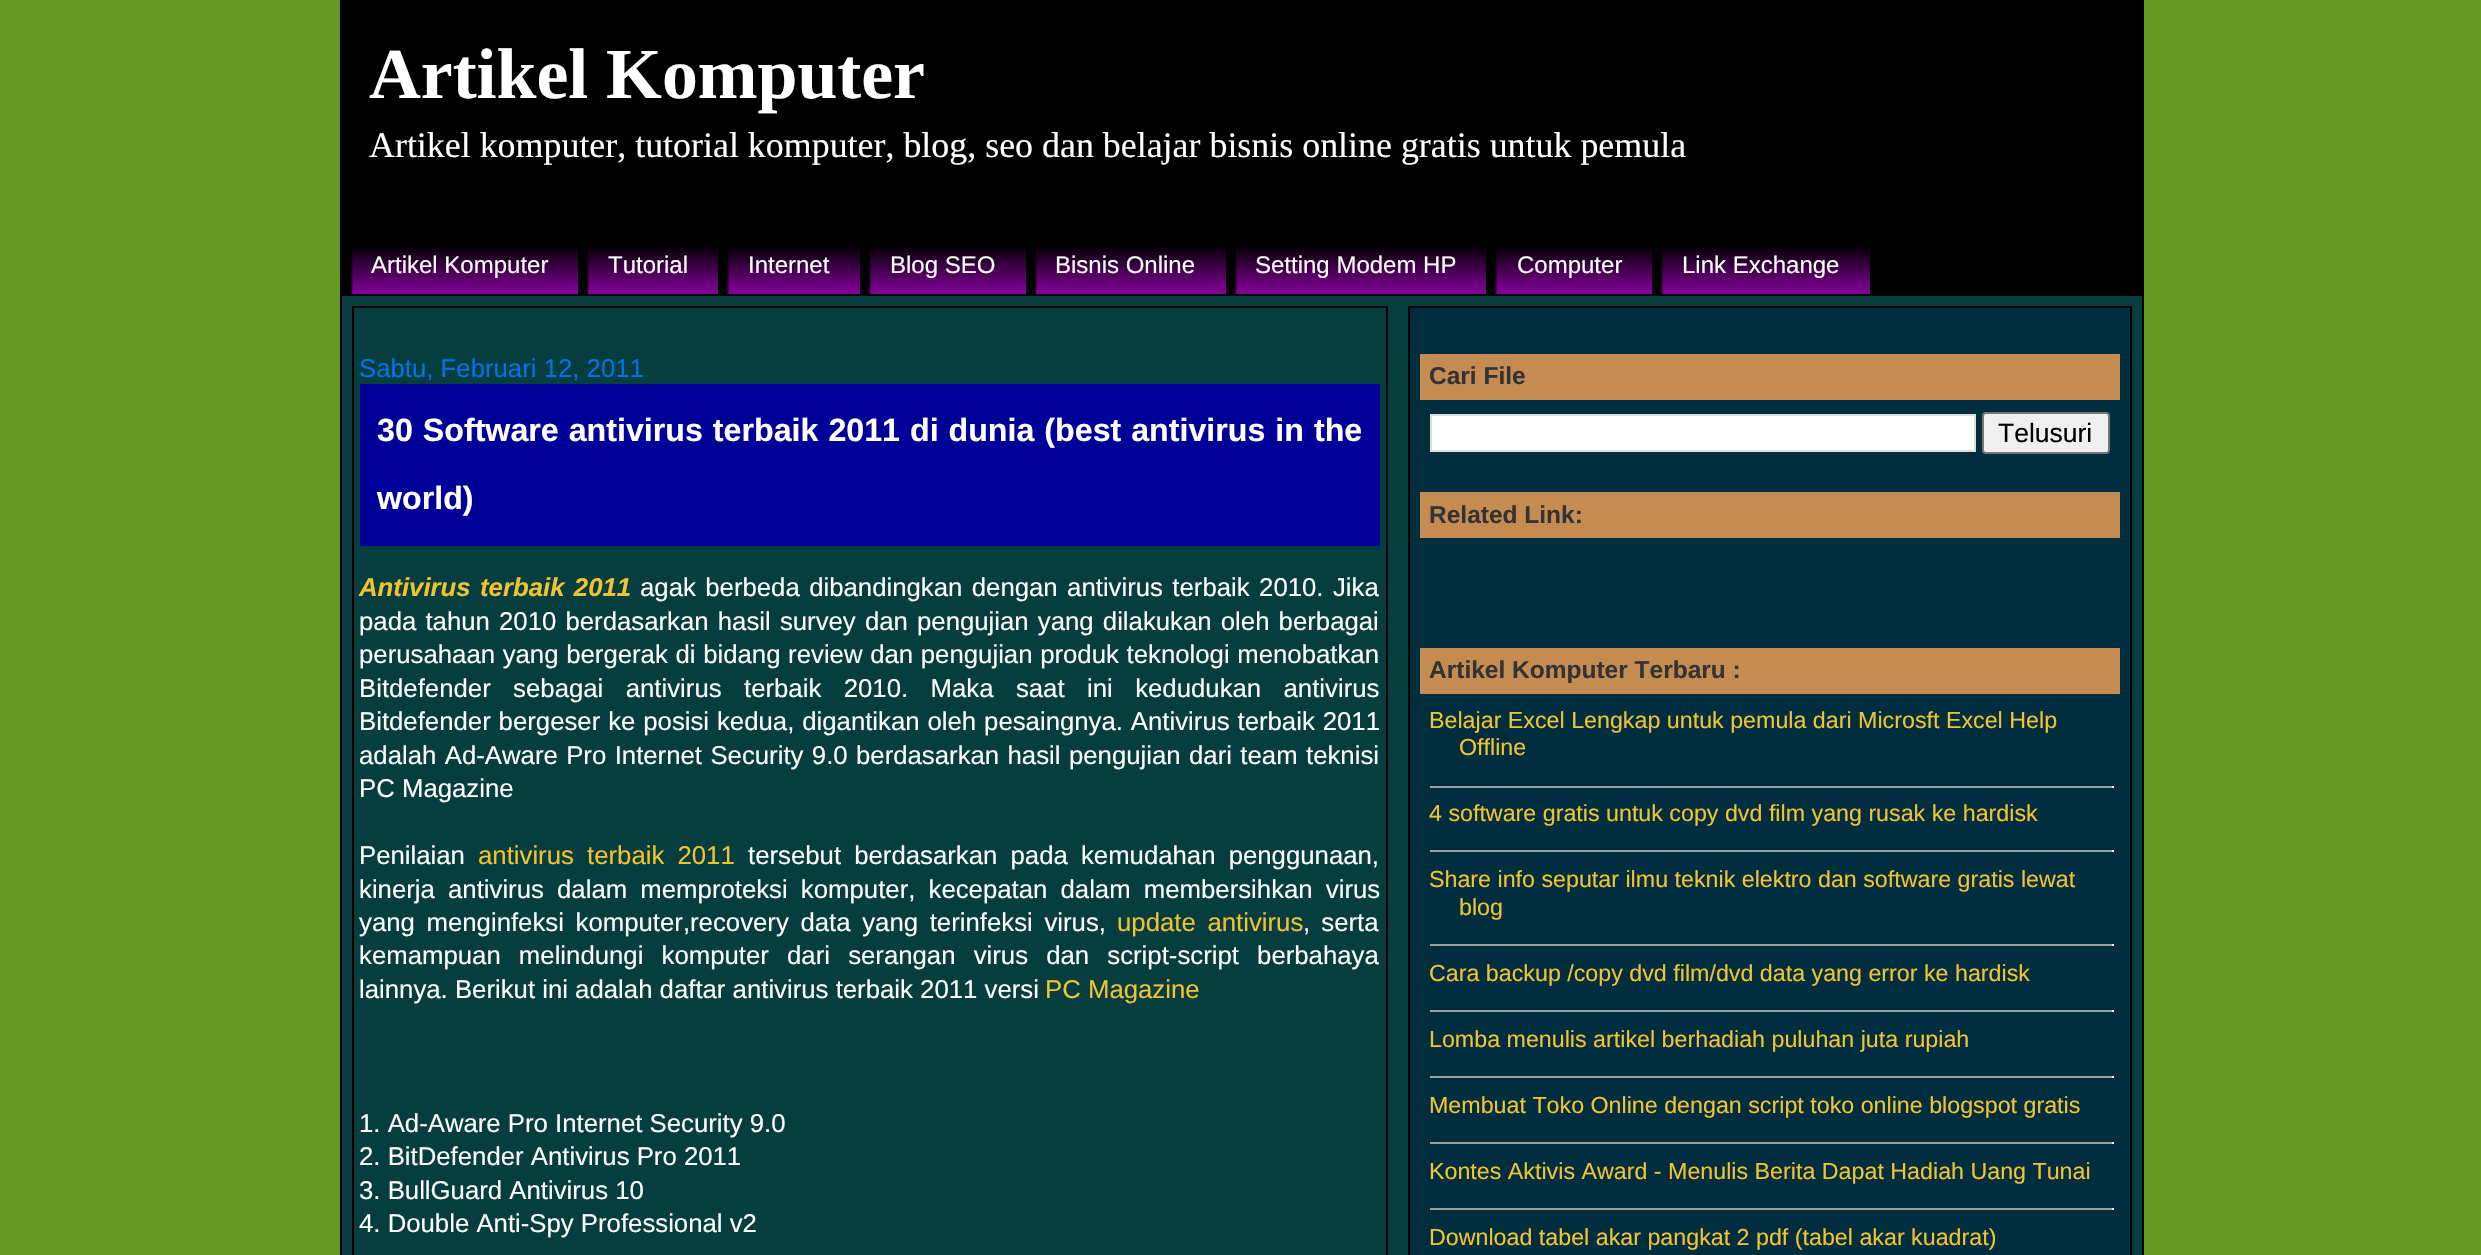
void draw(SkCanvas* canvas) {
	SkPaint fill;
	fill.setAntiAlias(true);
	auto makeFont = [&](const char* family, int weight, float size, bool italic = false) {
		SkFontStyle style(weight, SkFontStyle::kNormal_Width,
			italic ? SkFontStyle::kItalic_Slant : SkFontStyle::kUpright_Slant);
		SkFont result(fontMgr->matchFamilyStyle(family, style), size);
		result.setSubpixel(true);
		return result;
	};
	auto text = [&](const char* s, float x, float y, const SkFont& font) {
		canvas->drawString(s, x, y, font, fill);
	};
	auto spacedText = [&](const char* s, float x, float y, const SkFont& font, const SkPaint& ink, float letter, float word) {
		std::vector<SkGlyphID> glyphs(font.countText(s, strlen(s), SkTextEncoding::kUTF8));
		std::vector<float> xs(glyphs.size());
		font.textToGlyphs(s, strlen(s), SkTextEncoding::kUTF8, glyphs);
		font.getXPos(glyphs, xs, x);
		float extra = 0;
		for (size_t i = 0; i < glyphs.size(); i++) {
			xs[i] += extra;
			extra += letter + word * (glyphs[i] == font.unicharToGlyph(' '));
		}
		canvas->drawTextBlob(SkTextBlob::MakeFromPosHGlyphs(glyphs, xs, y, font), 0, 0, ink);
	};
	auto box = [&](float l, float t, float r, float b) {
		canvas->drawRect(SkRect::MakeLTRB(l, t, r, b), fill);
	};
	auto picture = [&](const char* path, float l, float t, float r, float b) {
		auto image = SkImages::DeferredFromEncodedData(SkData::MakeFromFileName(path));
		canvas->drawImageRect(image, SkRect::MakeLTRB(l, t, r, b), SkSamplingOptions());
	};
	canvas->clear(0xFF669922);
	fill.setColor(0xFF000000);
	box(340, 0, 2144, 296);
	picture("image0.png", 351, 247, 578, 294);
	picture("image1.png", 587, 247, 718, 294);
	picture("image2.png", 727, 247, 860, 294);
	picture("image3.png", 869, 247, 1026, 294);
	picture("image4.png", 1035, 247, 1226, 294);
	picture("image5.png", 1235, 247, 1486, 294);
	picture("image3.png", 1495, 247, 1652, 294);
	picture("image6.png", 1661, 247, 1870, 294);
	fill.setColor(0xFF063E3F);
	box(342, 296, 2142, 1255);
	fill.setColor(0xFF000000);
	box(2142, 296, 2144, 1255);
	box(340, 296, 342, 1255);
	fill.setStyle(SkPaint::kStroke_Style);
	fill.setStrokeWidth(2);
	canvas->drawRect(SkRect::MakeLTRB(353, 307, 1387, 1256), fill);
	fill.setStyle(SkPaint::kFill_Style);
	fill.setColor(0xFF000099);
	box(360, 384, 1380, 546);
	fill.setColor(0xFF002E3F);
	canvas->drawRect(SkRect::MakeLTRB(1409, 307, 2131, 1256), fill);
	fill.setStyle(SkPaint::kStroke_Style);
	fill.setColor(0xFF000000);
	canvas->drawRect(SkRect::MakeLTRB(1409, 307, 2131, 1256), fill);
	fill.setStyle(SkPaint::kFill_Style);
	fill.setColor(0xFFC58C52);
	box(1420, 354, 2120, 400);
	fill.setColor(0xFFFFFFFF);
	canvas->drawRect(SkRect::MakeLTRB(1431, 415, 1975, 451), fill);
	fill.setStyle(SkPaint::kStroke_Style);
	fill.setColor(0xFFDDDDDD);
	canvas->drawRect(SkRect::MakeLTRB(1431, 415, 1975, 451), fill);
	fill.setStyle(SkPaint::kFill_Style);
	fill.setColor(0xFFEFEFEF);
	canvas->drawRoundRect(SkRect::MakeLTRB(1983, 413, 2109, 453), 3, 3, fill);
	fill.setStyle(SkPaint::kStroke_Style);
	fill.setColor(0xFF767676);
	canvas->drawRoundRect(SkRect::MakeLTRB(1983, 413, 2109, 453), 3, 3, fill);
	fill.setStyle(SkPaint::kFill_Style);
	fill.setColor(0xFFC58C52);
	box(1420, 492, 2120, 538);
	box(1420, 648, 2120, 694);
	fill.setColor(0xFF9F9F9F);
	box(1430, 786, 2114, 788);
	fill.setColor(0xFFEEEEEE);
	box(2112, 786, 2114, 788);
	fill.setColor(0xFF9F9F9F);
	box(1430, 850, 2114, 852);
	fill.setColor(0xFFEEEEEE);
	box(2112, 850, 2114, 852);
	fill.setColor(0xFF9F9F9F);
	box(1430, 944, 2114, 946);
	fill.setColor(0xFFEEEEEE);
	box(2112, 944, 2114, 946);
	fill.setColor(0xFF9F9F9F);
	box(1430, 1010, 2114, 1012);
	fill.setColor(0xFFEEEEEE);
	box(2112, 1010, 2114, 1012);
	fill.setColor(0xFF9F9F9F);
	box(1430, 1076, 2114, 1078);
	fill.setColor(0xFFEEEEEE);
	box(2112, 1076, 2114, 1078);
	fill.setColor(0xFF9F9F9F);
	box(1430, 1142, 2114, 1144);
	fill.setColor(0xFFEEEEEE);
	box(2112, 1142, 2114, 1144);
	fill.setColor(0xFF9F9F9F);
	box(1430, 1208, 2114, 1210);
	fill.setColor(0xFFEEEEEE);
	box(2112, 1208, 2114, 1210);
	auto font1 = makeFont("Liberation Serif", 700, 71.75f);
	fill.setColor(0xFFFFFFFF);
	text("Artikel Komputer", 369, 98, font1);
	auto font2 = makeFont("Liberation Serif", 400, 35.9f);
	text("Artikel komputer, tutorial komputer, blog, seo dan belajar bisnis online gratis untuk pemula", 369, 157, font2);
	auto font3 = makeFont("Liberation Sans", 400, 24);
	text("Artikel Komputer", 371, 273, font3);
	text("Tutorial", 608, 273, font3);
	text("Internet", 748, 273, font3);
	text("Blog SEO", 890, 273, font3);
	text("Bisnis Online", 1055, 273, font3);
	text("Setting Modem HP", 1255, 273, font3);
	text("Computer", 1517, 273, font3);
	text("Link Exchange", 1682, 273, font3);
	auto font4 = makeFont("Liberation Sans", 400, 25.75f);
	fill.setColor(0xFF0073E6);
	text("Sabtu, Februari 12, 2011", 359, 377, font4);
	auto font5 = makeFont("Liberation Sans", 700, 32.2f);
	fill.setColor(0xFFFFFFFF);
	spacedText("30 Software antivirus terbaik 2011 di dunia (best antivirus in the", 377, 441, font5, fill, 0, 1);
	text("world)", 377, 509, font5);
	auto font6 = makeFont("Liberation Sans", 700, 25.75f, true);
	fill.setColor(0xFFF1C232);
	spacedText("Antivirus terbaik 2011", 359, 596, font6, fill, 0, 2.25f);
	fill.setColor(0xFFFFFFFF);
	spacedText("agak berbeda dibandingkan dengan antivirus terbaik 2010. Jika", 640, 596, font4, fill, 0, 2.25f);
	spacedText("pada tahun 2010 berdasarkan hasil survey dan pengujian yang dilakukan oleh berbagai", 359, 630, font4, fill, 0, 2);
	spacedText("perusahaan yang bergerak di bidang review dan pengujian produk teknologi menobatkan", 359, 663, font4, fill, 0, 0.5f);
	spacedText("Bitdefender sebagai antivirus terbaik 2010. Maka saat ini kedudukan antivirus", 359, 697, font4, fill, 0, 15.25f);
	spacedText("Bitdefender bergeser ke posisi kedua, digantikan oleh pesaingnya. Antivirus terbaik 2011", 359, 730, font4, fill, 0, 0.75f);
	spacedText("adalah Ad-Aware Pro Internet Security 9.0", 359, 764, font4, fill, 0, 1.25f);
	spacedText("berdasarkan hasil pengujian dari team teknisi", 856, 764, font4, fill, 0, 1.25f);
	text("PC Magazine", 359, 797, font4);
	text("Penilaian", 359, 864, font4);
	fill.setColor(0xFFF1C232);
	spacedText("antivirus terbaik 2011", 478, 864, font4, fill, 0, 6);
	fill.setColor(0xFFFFFFFF);
	spacedText("tersebut berdasarkan pada kemudahan penggunaan,", 748, 864, font4, fill, 0, 6);
	spacedText("kinerja antivirus dalam memproteksi komputer, kecepatan dalam membersihkan virus", 359, 898, font4, fill, 0, 6);
	spacedText("yang menginfeksi komputer,recovery data yang terinfeksi virus,", 359, 931, font4, fill, 0, 4.5f);
	fill.setColor(0xFFF1C232);
	spacedText("update antivirus", 1117, 931, font4, fill, 0, 4.5f);
	fill.setColor(0xFFFFFFFF);
	spacedText(", serta", 1303, 931, font4, fill, 0, 4);
	spacedText("kemampuan melindungi komputer dari serangan virus dan script-script berbahaya", 359, 964, font4, fill, 0, 11);
	text("lainnya. Berikut ini adalah daftar antivirus terbaik 2011 versi", 359, 998, font4);
	fill.setColor(0xFFF1C232);
	text("PC Magazine", 1045, 998, font4);
	fill.setColor(0xFFFFFFFF);
	text("1. Ad-Aware Pro Internet Security 9.0", 359, 1132, font4);
	text("2. BitDefender Antivirus Pro 2011", 359, 1165, font4);
	text("3. BullGuard Antivirus 10", 359, 1199, font4);
	text("4. Double Anti-Spy Professional v2", 359, 1232, font4);
	auto font7 = makeFont("Liberation Sans", 700, 24.5f);
	fill.setColor(0xFF333333);
	text("Cari File", 1429, 384, font7);
	auto font8 = makeFont("Liberation Sans", 400, 26.5f);
	fill.setColor(0xFF000000);
	text("Telusuri", 1998, 442, font8);
	fill.setColor(0xFF333333);
	text("Related Link:", 1429, 523, font7);
	text("Artikel Komputer Terbaru :", 1429, 678, font7);
	auto font9 = makeFont("Liberation Sans", 400, 23.25f);
	fill.setColor(0xFFF1C232);
	text("Belajar Excel Lengkap untuk pemula dari Microsft Excel Help", 1429, 728, font9);
	text("Offline", 1459, 755, font9);
	text("4 software gratis untuk copy dvd film yang rusak ke hardisk", 1429, 821, font9);
	text("Share info seputar ilmu teknik elektro dan software gratis lewat", 1429, 887, font9);
	text("blog", 1459, 915, font9);
	text("Cara backup /copy dvd film/dvd data yang error ke hardisk", 1429, 981, font9);
	text("Lomba menulis artikel berhadiah puluhan juta rupiah", 1429, 1047, font9);
	text("Membuat Toko Online dengan script toko online blogspot gratis", 1429, 1113, font9);
	text("Kontes Aktivis Award - Menulis Berita Dapat Hadiah Uang Tunai", 1429, 1179, font9);
	text("Download tabel akar pangkat 2 pdf (tabel akar kuadrat)", 1429, 1245, font9);
}
